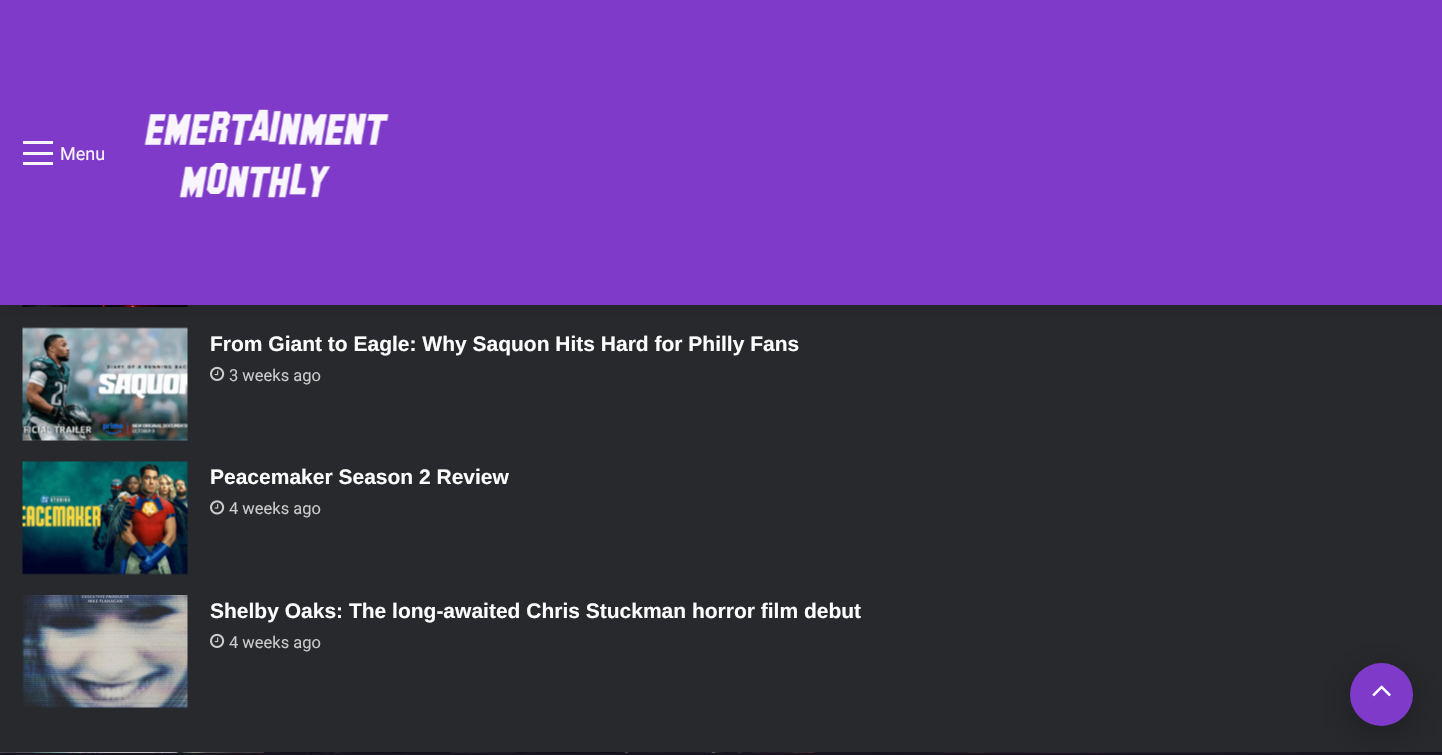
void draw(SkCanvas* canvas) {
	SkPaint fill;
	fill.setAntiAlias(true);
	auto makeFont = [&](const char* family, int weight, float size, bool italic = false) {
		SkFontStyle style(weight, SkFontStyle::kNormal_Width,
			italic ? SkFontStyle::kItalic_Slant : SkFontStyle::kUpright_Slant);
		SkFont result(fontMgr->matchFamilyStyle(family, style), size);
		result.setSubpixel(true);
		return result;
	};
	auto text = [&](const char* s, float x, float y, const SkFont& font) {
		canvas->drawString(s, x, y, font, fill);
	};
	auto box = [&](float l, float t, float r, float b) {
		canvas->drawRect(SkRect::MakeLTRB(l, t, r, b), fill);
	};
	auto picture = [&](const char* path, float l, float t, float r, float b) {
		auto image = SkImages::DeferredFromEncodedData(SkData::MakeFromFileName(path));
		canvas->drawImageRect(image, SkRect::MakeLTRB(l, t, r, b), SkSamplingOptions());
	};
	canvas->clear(0xFF27292D);
	picture("image1.png", 22, 305, 188, 307);
	fill.setColor(0x1A000000);
	fill.setMaskFilter(SkMaskFilter::MakeBlur(kNormal_SkBlurStyle, 5));
	canvas->drawRect(SkRect::MakeLTRB(0, 5, 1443, 309), fill);
	fill.setMaskFilter(nullptr);
	fill.setColor(0xFF7F3AC9);
	box(0, 0, 1442, 305);
	fill.setColor(0xFFF9F5FC);
	box(23, 152, 53, 155);
	box(23, 141, 53, 144);
	box(23, 162, 53, 165);
	picture("image0.png", 144, 109, 389, 198);
	picture("image2.png", 22, 327, 188, 441);
	picture("image3.png", 210, 366, 225, 381);
	picture("image4.png", 22, 461, 188, 575);
	picture("image5.png", 210, 500, 225, 515);
	picture("image6.png", 22, 595, 188, 708);
	picture("image3.png", 210, 633, 225, 648);
	picture("image8.png", 0, 752, 1442, 753);
	fill.setColor(0xFF17141F);
	box(0, 753, 1442, 755);
	fill.setColor(0x4D000000);
	fill.setMaskFilter(SkMaskFilter::MakeBlur(kNormal_SkBlurStyle, 19));
	canvas->drawRoundRect(SkRect::MakeLTRB(1350, 671, 1413, 734), 31.5f, 31.5f, fill);
	fill.setMaskFilter(nullptr);
	fill.setColor(0xFF7F3AC9);
	canvas->drawCircle(1381.5f, 694.5f, 31.5f, fill);
	picture("image7.png", 1372, 685, 1391, 697);
	auto font1 = makeFont("Roboto", 400, 18);
	fill.setColor(0xFFF9F5FC);
	text("Menu", 60, 160, font1);
	auto font2 = makeFont("Liberation Sans", 700, 21);
	fill.setColor(0xFFFDFDFD);
	text("From Giant to Eagle: Why Saquon Hits Hard for Philly Fans", 210, 351, font2);
	auto font3 = makeFont("Roboto", 400, 16.5f);
	fill.setColor(0xFFCACACA);
	text("3 weeks ago", 229, 381, font3);
	fill.setColor(0xFFFDFDFD);
	text("Peacemaker Season 2 Review", 210, 484, font2);
	fill.setColor(0xFFCACACA);
	text("4 weeks ago", 229, 514, font3);
	fill.setColor(0xFFFDFDFD);
	text("Shelby Oaks: The long-awaited Chris Stuckman horror film debut", 210, 618, font2);
	fill.setColor(0xFFCACACA);
	text("4 weeks ago", 229, 648, font3);
}
